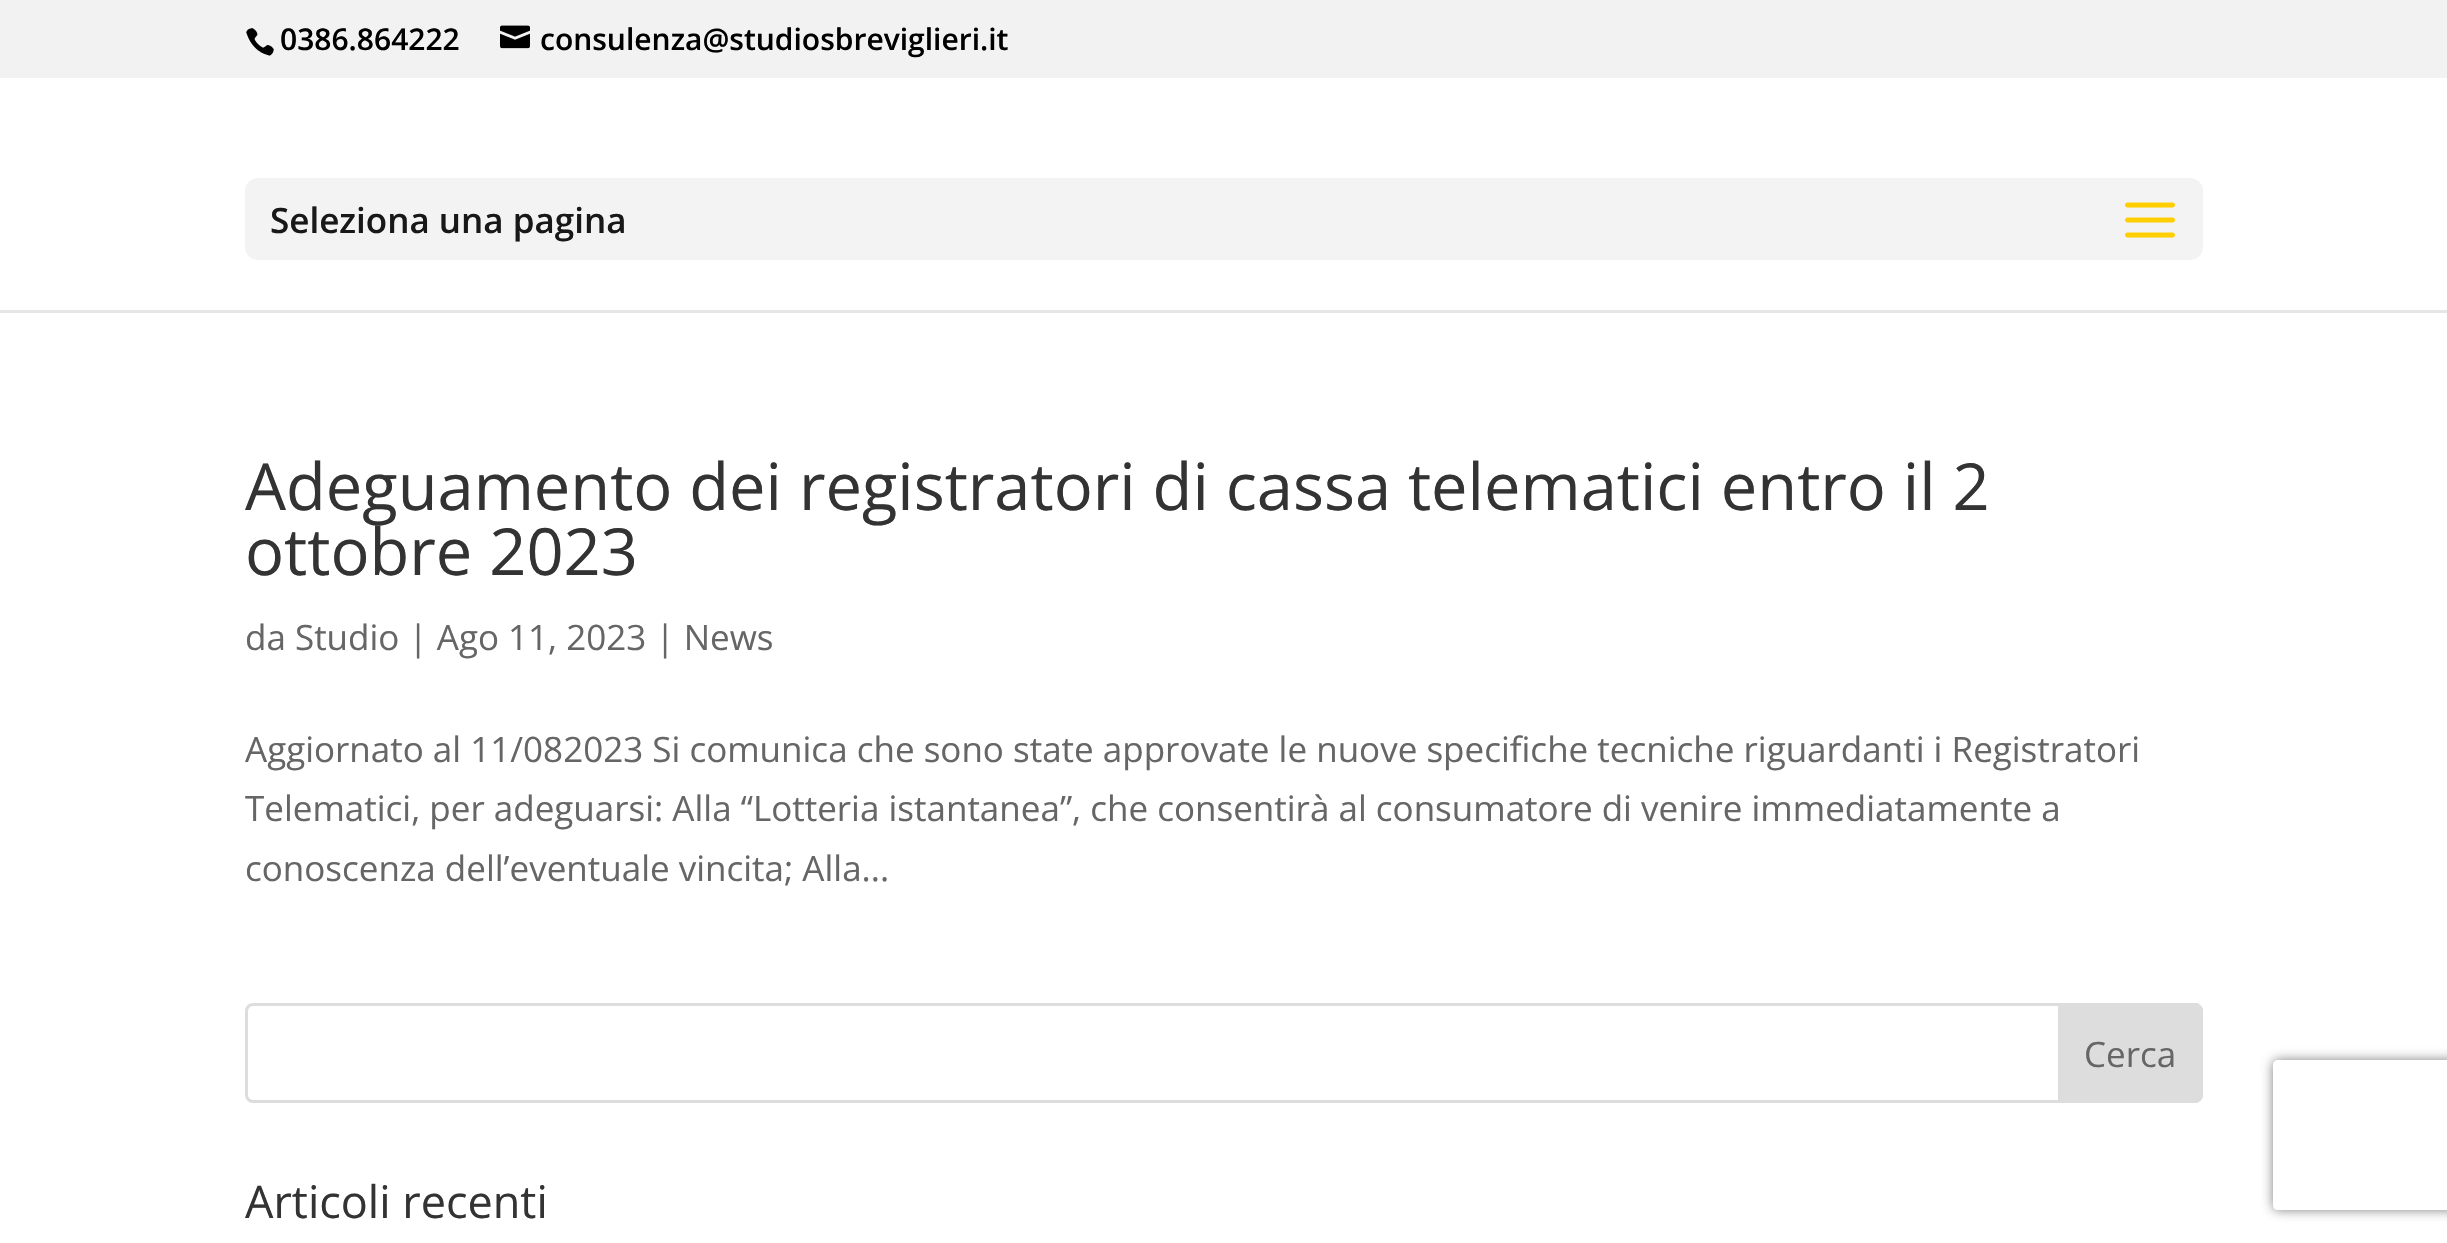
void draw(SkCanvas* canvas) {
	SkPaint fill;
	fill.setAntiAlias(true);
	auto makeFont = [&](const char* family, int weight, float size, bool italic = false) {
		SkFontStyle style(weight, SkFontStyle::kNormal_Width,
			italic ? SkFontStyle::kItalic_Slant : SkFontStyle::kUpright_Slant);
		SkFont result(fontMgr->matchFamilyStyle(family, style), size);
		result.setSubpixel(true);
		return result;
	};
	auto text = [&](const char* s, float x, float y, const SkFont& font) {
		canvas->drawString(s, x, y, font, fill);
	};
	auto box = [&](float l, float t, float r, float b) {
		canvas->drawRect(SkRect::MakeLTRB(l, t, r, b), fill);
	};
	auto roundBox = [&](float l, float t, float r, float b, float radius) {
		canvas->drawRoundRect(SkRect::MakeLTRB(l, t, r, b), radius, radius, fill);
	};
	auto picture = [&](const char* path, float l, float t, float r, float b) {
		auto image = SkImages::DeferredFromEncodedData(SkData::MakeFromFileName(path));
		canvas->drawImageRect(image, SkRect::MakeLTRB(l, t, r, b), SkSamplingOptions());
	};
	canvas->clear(0xFFFFFFFF);
	fill.setColor(0xFFF2F2F2);
	box(0, 0, 2447, 78);
	picture("image0.png", 246, 28, 274, 56);
	picture("image1.png", 500, 25, 530, 49);
	fill.setColor(0xFFE6E6E6);
	canvas->drawPath(SkPathBuilder().moveTo(0, 310).lineTo(0, 313).lineTo(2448, 313).lineTo(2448, 80).lineTo(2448, 310).close().detach(), fill);
	fill.setColor(0xFFF3F3F3);
	roundBox(245, 178, 2203, 260, 13);
	picture("image2.png", 2125, 202, 2175, 238);
	fill.setStyle(SkPaint::kStroke_Style);
	fill.setStrokeWidth(3);
	fill.setColor(0xFFDDDDDD);
	canvas->drawRoundRect(SkRect::MakeLTRB(246.5f, 1004.5f, 2201.5f, 1101.5f), 6.5f, 6.5f, fill);
	fill.setStyle(SkPaint::kFill_Style);
	canvas->drawPath(SkPathBuilder().moveTo(2059.5f, 1004.5f).lineTo(2195, 1004.5f).cubicTo(2198.5f, 1004.5f, 2201.5f, 1007.5f, 2201.5f, 1011).lineTo(2201.5f, 1095).cubicTo(2201.5f, 1098.5f, 2198.5f, 1101.5f, 2195, 1101.5f).lineTo(2059.5f, 1101.5f).close().detach(), fill);
	fill.setStyle(SkPaint::kStroke_Style);
	canvas->drawPath(SkPathBuilder().moveTo(2059.5f, 1004.5f).lineTo(2195, 1004.5f).cubicTo(2198.5f, 1004.5f, 2201.5f, 1007.5f, 2201.5f, 1011).lineTo(2201.5f, 1095).cubicTo(2201.5f, 1098.5f, 2198.5f, 1101.5f, 2195, 1101.5f).lineTo(2059.5f, 1101.5f).close().detach(), fill);
	canvas->save();
	canvas->clipPath(SkPathBuilder(SkPathFillType::kEvenOdd).moveTo(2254, 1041).lineTo(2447, 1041).lineTo(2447, 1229).lineTo(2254, 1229).close().moveTo(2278, 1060).lineTo(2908, 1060).cubicTo(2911, 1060, 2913, 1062, 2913, 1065).lineTo(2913, 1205).cubicTo(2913, 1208, 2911, 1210, 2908, 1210).lineTo(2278, 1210).cubicTo(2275, 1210, 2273, 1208, 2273, 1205).lineTo(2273, 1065).cubicTo(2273, 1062, 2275, 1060, 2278, 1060).close().detach(), true);
	fill.setStyle(SkPaint::kFill_Style);
	fill.setColor(0xFF808080);
	fill.setMaskFilter(SkMaskFilter::MakeBlur(kNormal_SkBlurStyle, 6));
	canvas->drawRoundRect(SkRect::MakeLTRB(2273, 1060, 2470, 1210), 5, 5, fill);
	fill.setMaskFilter(nullptr);
	canvas->restore();
	auto font1 = makeFont("Open Sans", 600, 30);
	fill.setColor(0xFF000000);
	text("0386.864222", 280, 50, font1);
	text("consulenza@studiosbreviglieri.it", 540, 50, font1);
	auto font2 = makeFont("Open Sans", 600, 35);
	fill.setColor(0xFF181818);
	text("Seleziona una pagina", 270, 233, font2);
	auto font3 = makeFont("Open Sans", 400, 65);
	fill.setColor(0xFF333333);
	text("Adeguamento dei registratori di cassa telematici entro il 2", 245, 510, font3);
	text("ottobre 2023", 245, 575, font3);
	auto font4 = makeFont("Open Sans", 400, 35);
	fill.setColor(0xFF666666);
	text("da Studio | Ago 11, 2023 | News", 245, 650, font4);
	text("Aggiornato al 11/082023 Si comunica che sono state approvate le nuove specifiche tecniche riguardanti i Registratori", 245, 762, font4);
	text("Telematici, per adeguarsi: Alla “Lotteria istantanea”, che consentirà al consumatore di venire immediatamente a", 245, 821, font4);
	text("conoscenza dell’eventuale vincita; Alla...", 245, 881, font4);
	text("Cerca", 2084, 1067, font4);
	auto font5 = makeFont("Open Sans", 400, 45);
	fill.setColor(0xFF333333);
	text("Articoli recenti", 245, 1218, font5);
}
